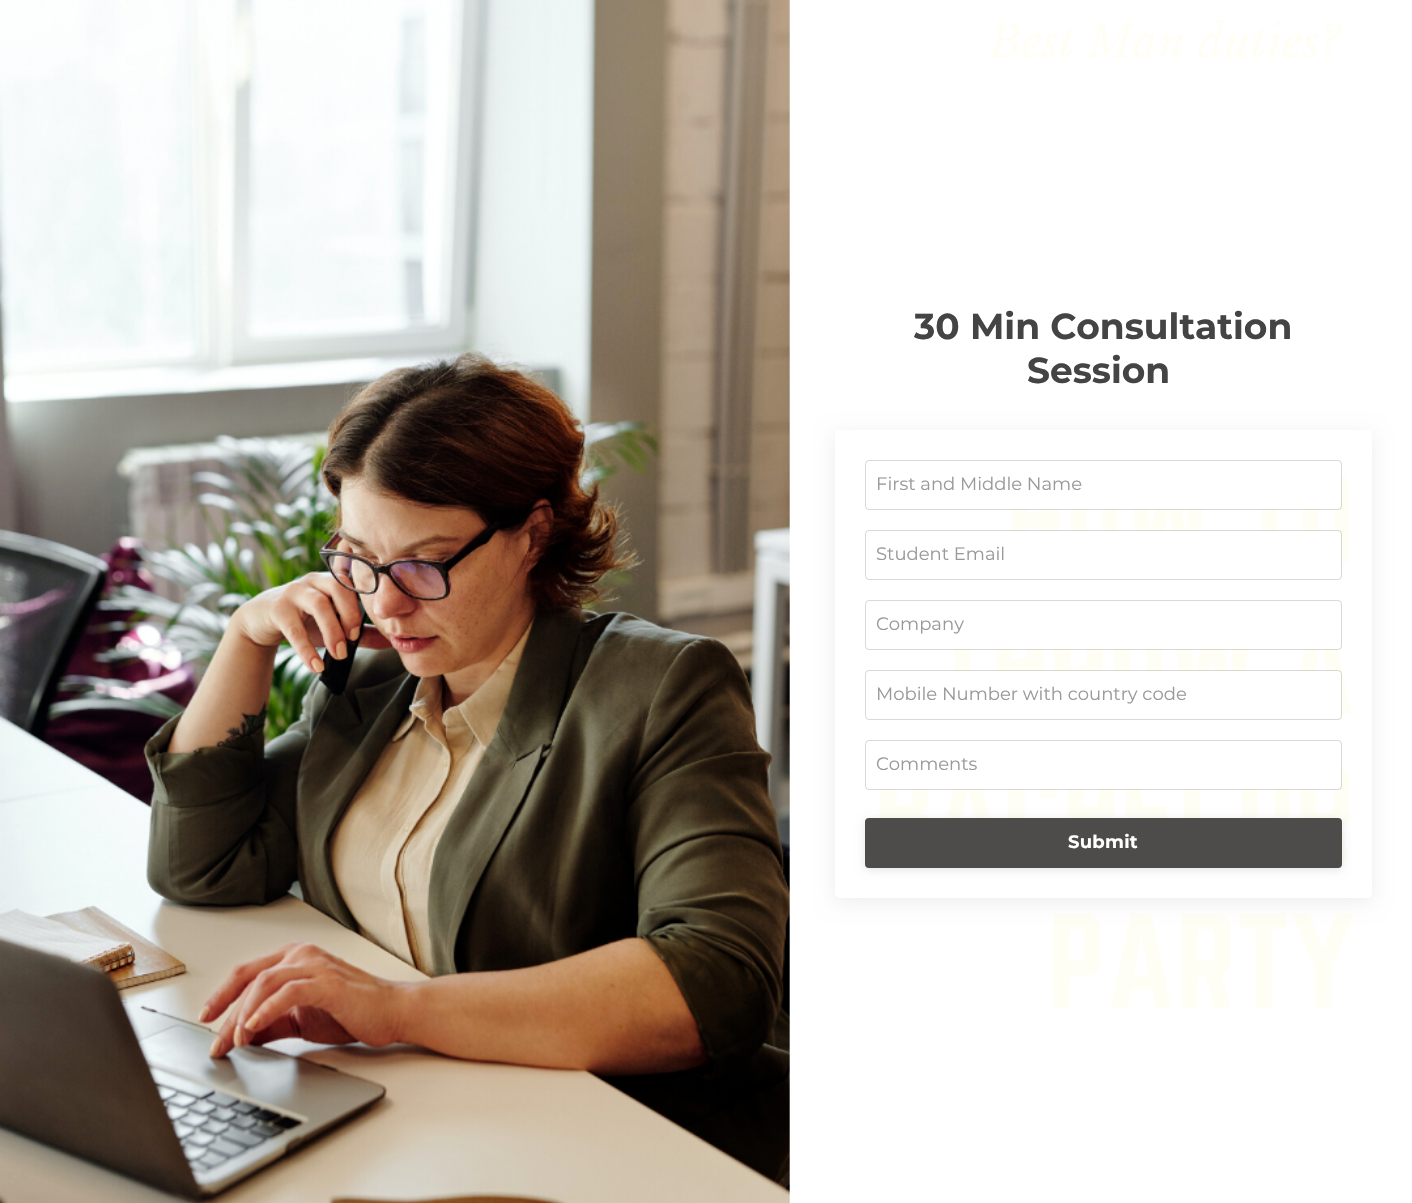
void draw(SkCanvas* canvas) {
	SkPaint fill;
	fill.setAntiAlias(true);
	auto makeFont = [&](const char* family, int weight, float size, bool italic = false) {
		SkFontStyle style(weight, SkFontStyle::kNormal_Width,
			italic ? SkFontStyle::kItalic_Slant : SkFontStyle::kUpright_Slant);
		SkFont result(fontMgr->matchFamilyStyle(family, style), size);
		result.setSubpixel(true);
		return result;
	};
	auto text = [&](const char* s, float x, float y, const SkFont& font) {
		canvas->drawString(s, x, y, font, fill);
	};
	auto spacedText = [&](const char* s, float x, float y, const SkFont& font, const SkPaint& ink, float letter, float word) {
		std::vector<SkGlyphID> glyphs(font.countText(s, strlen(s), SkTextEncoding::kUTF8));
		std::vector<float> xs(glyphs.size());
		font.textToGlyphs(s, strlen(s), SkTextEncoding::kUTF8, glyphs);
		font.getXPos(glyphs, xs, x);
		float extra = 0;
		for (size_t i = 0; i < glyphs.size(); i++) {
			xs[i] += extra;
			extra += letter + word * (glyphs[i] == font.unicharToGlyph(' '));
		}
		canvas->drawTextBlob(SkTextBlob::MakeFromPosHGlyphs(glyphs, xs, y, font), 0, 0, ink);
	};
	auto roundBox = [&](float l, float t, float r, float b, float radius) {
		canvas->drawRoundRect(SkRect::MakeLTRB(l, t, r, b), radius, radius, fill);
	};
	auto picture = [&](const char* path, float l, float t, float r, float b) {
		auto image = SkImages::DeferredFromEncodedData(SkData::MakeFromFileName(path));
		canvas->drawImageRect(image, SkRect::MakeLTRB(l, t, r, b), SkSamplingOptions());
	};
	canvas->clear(0xFFFFFFFF);
	picture("image0.png", 0, 0, 1353, 1203);
	canvas->save();
	canvas->clipPath(SkPathBuilder(SkPathFillType::kEvenOdd).moveTo(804, 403).lineTo(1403, 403).lineTo(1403, 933).lineTo(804, 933).close().moveTo(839, 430).lineTo(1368, 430).cubicTo(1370, 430, 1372, 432, 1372, 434).lineTo(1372, 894).cubicTo(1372, 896, 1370, 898, 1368, 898).lineTo(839, 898).cubicTo(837, 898, 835, 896, 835, 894).lineTo(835, 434).cubicTo(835, 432, 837, 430, 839, 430).close().detach(), true);
	fill.setColor(0x12000000);
	fill.setMaskFilter(SkMaskFilter::MakeBlur(kNormal_SkBlurStyle, 10));
	canvas->drawRoundRect(SkRect::MakeLTRB(835, 434, 1372, 902), 4, 4, fill);
	fill.setMaskFilter(nullptr);
	canvas->restore();
	fill.setColor(0xFFFFFFFF);
	roundBox(866, 461, 1341, 509, 3);
	fill.setStyle(SkPaint::kStroke_Style);
	fill.setStrokeWidth(1);
	fill.setColor(0x26000000);
	canvas->drawRoundRect(SkRect::MakeLTRB(865.5f, 460.5f, 1341.5f, 509.5f), 3.5f, 3.5f, fill);
	fill.setStyle(SkPaint::kFill_Style);
	fill.setColor(0xFFFFFFFF);
	roundBox(866, 531, 1341, 579, 3);
	fill.setStyle(SkPaint::kStroke_Style);
	fill.setColor(0x26000000);
	canvas->drawRoundRect(SkRect::MakeLTRB(865.5f, 530.5f, 1341.5f, 579.5f), 3.5f, 3.5f, fill);
	fill.setStyle(SkPaint::kFill_Style);
	fill.setColor(0xFFFFFFFF);
	roundBox(866, 601, 1341, 649, 3);
	fill.setStyle(SkPaint::kStroke_Style);
	fill.setColor(0x26000000);
	canvas->drawRoundRect(SkRect::MakeLTRB(865.5f, 600.5f, 1341.5f, 649.5f), 3.5f, 3.5f, fill);
	fill.setStyle(SkPaint::kFill_Style);
	fill.setColor(0xFFFFFFFF);
	roundBox(866, 671, 1341, 719, 3);
	fill.setStyle(SkPaint::kStroke_Style);
	fill.setColor(0x26000000);
	canvas->drawRoundRect(SkRect::MakeLTRB(865.5f, 670.5f, 1341.5f, 719.5f), 3.5f, 3.5f, fill);
	fill.setStyle(SkPaint::kFill_Style);
	fill.setColor(0xFFFFFFFF);
	roundBox(866, 741, 1341, 789, 3);
	fill.setStyle(SkPaint::kStroke_Style);
	fill.setColor(0x26000000);
	canvas->drawRoundRect(SkRect::MakeLTRB(865.5f, 740.5f, 1341.5f, 789.5f), 3.5f, 3.5f, fill);
	fill.setStyle(SkPaint::kFill_Style);
	fill.setColor(0x1A000000);
	fill.setMaskFilter(SkMaskFilter::MakeBlur(kNormal_SkBlurStyle, 5));
	canvas->drawRoundRect(SkRect::MakeLTRB(865, 820, 1342, 870), 4, 4, fill);
	fill.setMaskFilter(nullptr);
	fill.setColor(0xFF4E4B4B);
	canvas->drawRoundRect(SkRect::MakeLTRB(866, 819, 1341, 867), 3, 3, fill);
	fill.setStyle(SkPaint::kStroke_Style);
	fill.setStrokeWidth(2);
	canvas->drawRoundRect(SkRect::MakeLTRB(866, 819, 1341, 867), 3, 3, fill);
	auto font1 = makeFont("Montserrat", 700, 36);
	fill.setStyle(SkPaint::kFill_Style);
	fill.setColor(0xFF444444);
	text("30 Min Consultation", 914, 339, font1);
	text("Session", 1027, 383, font1);
	auto font2 = makeFont("Montserrat", 400, 18);
	fill.setColor(0xFF999999);
	text("First and Middle Name", 876, 490, font2);
	text("Student Email", 876, 560, font2);
	text("Company", 876, 630, font2);
	text("Mobile Number with country code", 876, 700, font2);
	text("Comments", 876, 770, font2);
	auto font3 = makeFont("Montserrat", 700, 18);
	fill.setColor(0xFFFFFFFF);
	spacedText("Submit", 1068, 848, font3, fill, 0.25f, 0);
}
